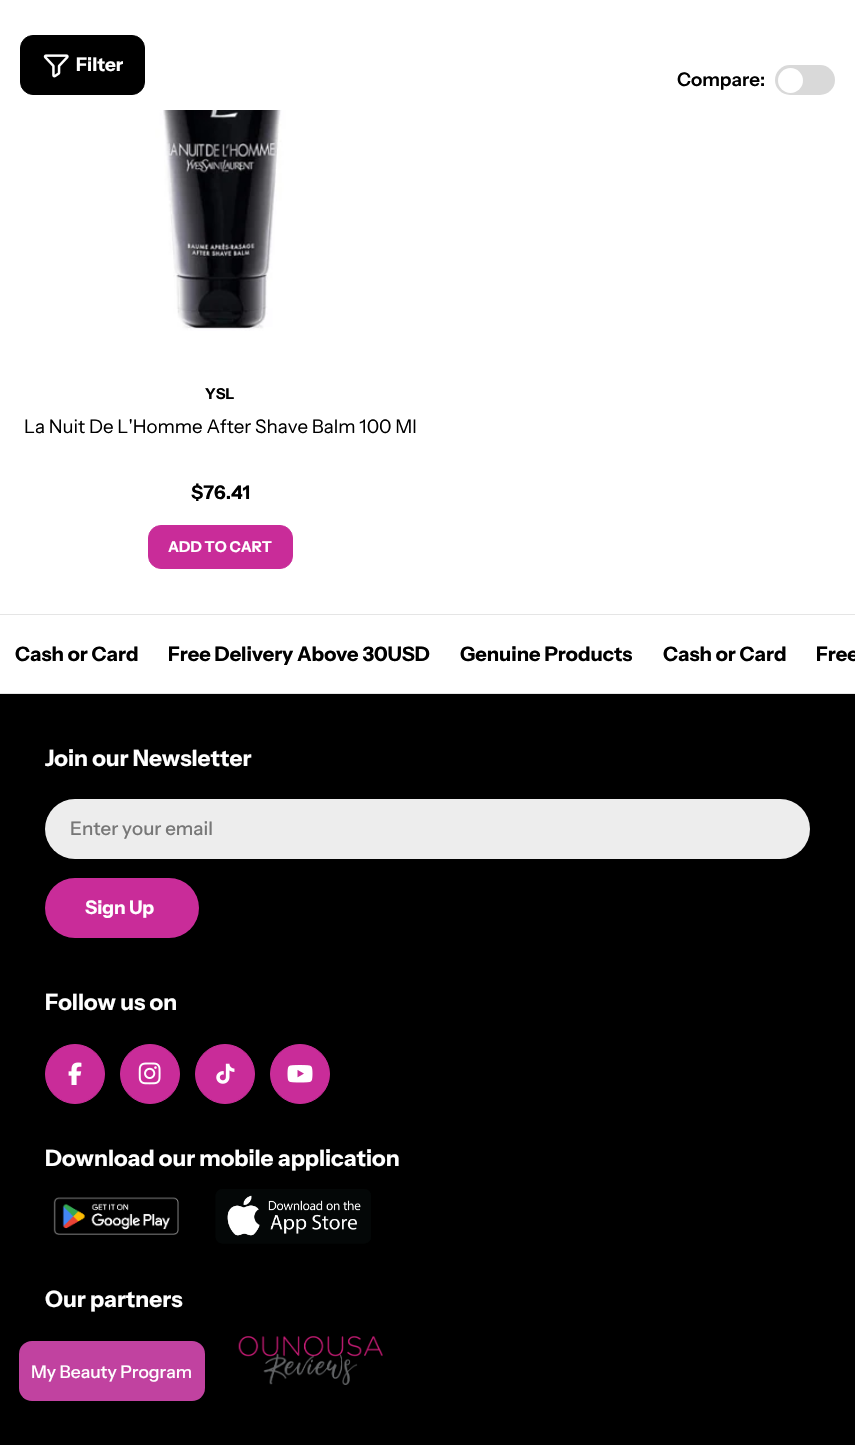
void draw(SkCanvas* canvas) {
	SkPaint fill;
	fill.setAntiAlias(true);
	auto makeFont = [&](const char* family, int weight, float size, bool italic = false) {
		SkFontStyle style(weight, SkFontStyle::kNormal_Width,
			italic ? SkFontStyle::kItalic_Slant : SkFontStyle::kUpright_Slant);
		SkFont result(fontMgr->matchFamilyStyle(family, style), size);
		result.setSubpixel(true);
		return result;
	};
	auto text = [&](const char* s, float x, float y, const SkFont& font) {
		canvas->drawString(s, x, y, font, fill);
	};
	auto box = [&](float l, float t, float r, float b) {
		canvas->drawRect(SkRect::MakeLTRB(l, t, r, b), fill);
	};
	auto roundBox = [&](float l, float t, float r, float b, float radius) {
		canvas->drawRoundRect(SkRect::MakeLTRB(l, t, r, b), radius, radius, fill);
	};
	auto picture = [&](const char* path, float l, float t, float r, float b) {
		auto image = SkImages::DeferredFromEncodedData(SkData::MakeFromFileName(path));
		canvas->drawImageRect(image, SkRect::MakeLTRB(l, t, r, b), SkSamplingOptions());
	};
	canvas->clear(0xFFFFFFFF);
	fill.setColor(0xFF000000);
	canvas->drawRoundRect(SkRect::MakeLTRB(20.5f, 35.5f, 144.5f, 94.5f), 12.5f, 12.5f, fill);
	fill.setStyle(SkPaint::kStroke_Style);
	fill.setStrokeWidth(1);
	canvas->drawRoundRect(SkRect::MakeLTRB(20.5f, 35.5f, 144.5f, 94.5f), 12.5f, 12.5f, fill);
	picture("image0.png", 43, 54, 69, 78);
	fill.setStyle(SkPaint::kFill_Style);
	fill.setColor(0xFFD9D9D9);
	roundBox(775, 65, 835, 95, 15);
	fill.setColor(0xFFFFFFFF);
	canvas->drawCircle(790.5f, 80.5f, 12.5f, fill);
	picture("image1.png", 143, 110, 295, 331);
	fill.setColor(0xFFC92C99);
	canvas->drawRoundRect(SkRect::MakeLTRB(148.5f, 525.5f, 292.5f, 568.5f), 12.5f, 12.5f, fill);
	fill.setStyle(SkPaint::kStroke_Style);
	canvas->drawRoundRect(SkRect::MakeLTRB(148.5f, 525.5f, 292.5f, 568.5f), 12.5f, 12.5f, fill);
	fill.setStyle(SkPaint::kFill_Style);
	fill.setColor(0xFFE5E5E5);
	box(0, 614, 855, 615);
	box(0, 693, 855, 694);
	fill.setColor(0xFF000000);
	box(0, 694, 855, 1445);
	fill.setColor(0xFFEDEDED);
	roundBox(45, 799, 810, 859, 30);
	fill.setColor(0xFFC92C99);
	roundBox(45, 878, 199, 938, 30);
	canvas->drawCircle(75, 1074, 29.5f, fill);
	fill.setStyle(SkPaint::kStroke_Style);
	canvas->drawCircle(75, 1074, 29.5f, fill);
	picture("image2.png", 68, 1062, 82, 1085);
	fill.setStyle(SkPaint::kFill_Style);
	canvas->drawCircle(150, 1074, 29.5f, fill);
	fill.setStyle(SkPaint::kStroke_Style);
	canvas->drawCircle(150, 1074, 29.5f, fill);
	picture("image3.png", 138, 1062, 161, 1085);
	fill.setStyle(SkPaint::kFill_Style);
	canvas->drawCircle(225, 1074, 29.5f, fill);
	fill.setStyle(SkPaint::kStroke_Style);
	canvas->drawCircle(225, 1074, 29.5f, fill);
	picture("image4.png", 216, 1063, 235, 1084);
	fill.setStyle(SkPaint::kFill_Style);
	canvas->drawCircle(300, 1074, 29.5f, fill);
	fill.setStyle(SkPaint::kStroke_Style);
	canvas->drawCircle(300, 1074, 29.5f, fill);
	picture("image5.png", 287, 1065, 313, 1083);
	picture("image6.png", 53, 1197, 179, 1235);
	picture("image7.png", 215, 1189, 371, 1244);
	picture("image8.png", 238, 1336, 383, 1385);
	fill.setStyle(SkPaint::kFill_Style);
	fill.setColor(0xFFC142A0);
	roundBox(19, 1341, 205, 1401, 13);
	auto font1 = makeFont("Instrument Sans", 700, 18.75f);
	fill.setColor(0xFFFFFFFF);
	text("Filter", 76, 71, font1);
	auto font2 = makeFont("Instrument Sans", 600, 18.75f);
	fill.setColor(0xFF000000);
	text("Compare:", 677, 86, font2);
	auto font3 = makeFont("Instrument Sans", 700, 15);
	text("YSL", 205, 399, font3);
	auto font4 = makeFont("Instrument Sans", 400, 18.75f);
	text("La Nuit De L'Homme After Shave Balm 100 Ml", 24, 433, font4);
	text("$76.41", 191, 499, font1);
	fill.setColor(0xFFFFFFFF);
	text("ADD TO CART", 168, 552, font3);
	auto font5 = makeFont("Instrument Sans", 700, 20);
	fill.setColor(0xFF000000);
	text("Cash or Card", 15, 661, font5);
	text("Free Delivery Above 30USD", 168, 661, font5);
	text("Genuine Products", 460, 661, font5);
	text("Cash or Card", 663, 661, font5);
	text("Free", 816, 661, font5);
	auto font6 = makeFont("Instrument Sans", 700, 22.5f);
	fill.setColor(0xFFFFFFFF);
	text("Join our Newsletter", 45, 766, font6);
	auto font7 = makeFont("Instrument Sans", 500, 18.75f);
	fill.setColor(0xFF777777);
	text("Enter your email", 70, 835, font7);
	fill.setColor(0xFFFFFFFF);
	text("Sign Up", 85, 914, font1);
	text("Follow us on", 45, 1010, font6);
	text("Download our mobile application", 45, 1166, font6);
	text("Our partners", 45, 1307, font6);
	auto font8 = makeFont("Instrument Sans", 500, 17.5f);
	text("My Beauty Program", 31, 1378, font8);
}
